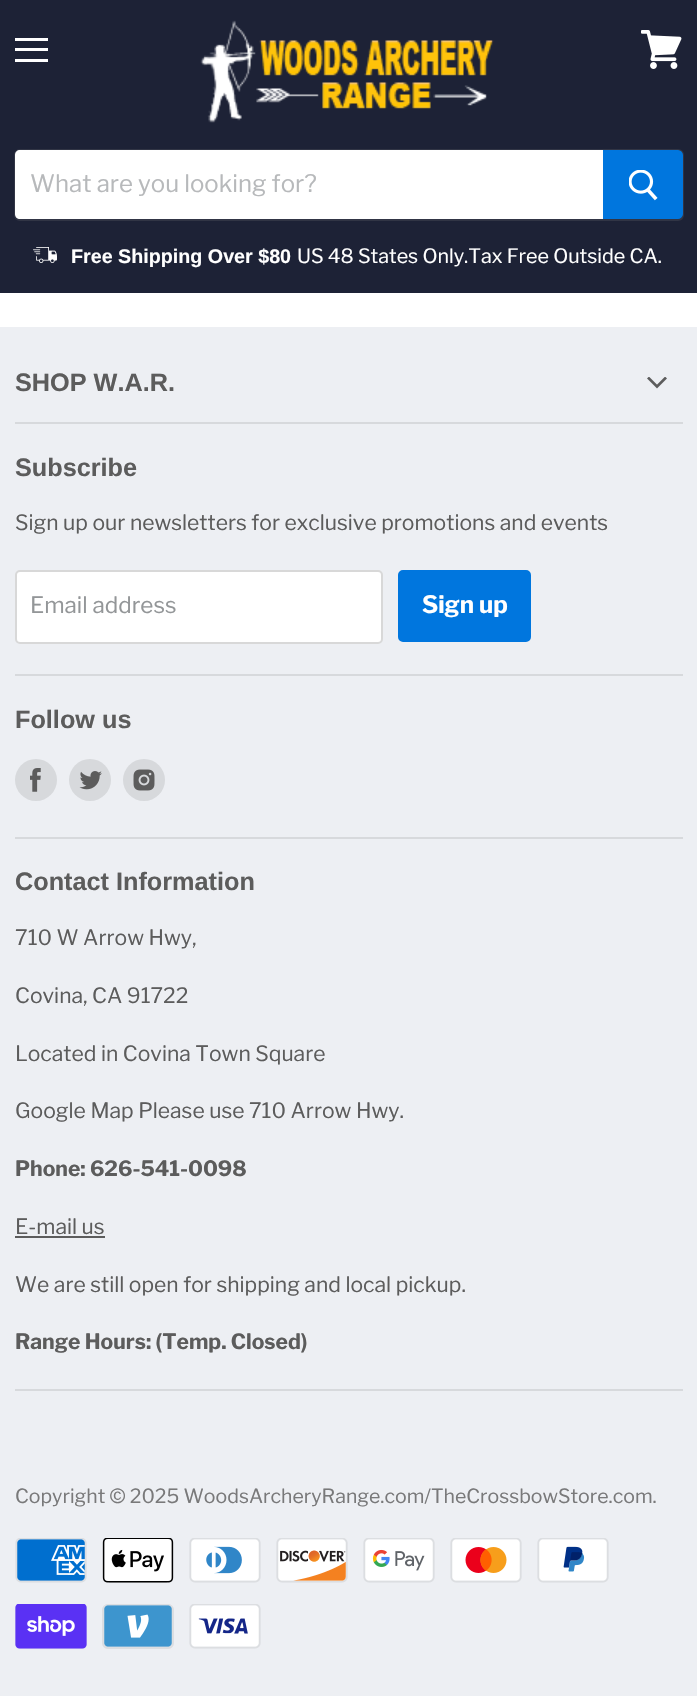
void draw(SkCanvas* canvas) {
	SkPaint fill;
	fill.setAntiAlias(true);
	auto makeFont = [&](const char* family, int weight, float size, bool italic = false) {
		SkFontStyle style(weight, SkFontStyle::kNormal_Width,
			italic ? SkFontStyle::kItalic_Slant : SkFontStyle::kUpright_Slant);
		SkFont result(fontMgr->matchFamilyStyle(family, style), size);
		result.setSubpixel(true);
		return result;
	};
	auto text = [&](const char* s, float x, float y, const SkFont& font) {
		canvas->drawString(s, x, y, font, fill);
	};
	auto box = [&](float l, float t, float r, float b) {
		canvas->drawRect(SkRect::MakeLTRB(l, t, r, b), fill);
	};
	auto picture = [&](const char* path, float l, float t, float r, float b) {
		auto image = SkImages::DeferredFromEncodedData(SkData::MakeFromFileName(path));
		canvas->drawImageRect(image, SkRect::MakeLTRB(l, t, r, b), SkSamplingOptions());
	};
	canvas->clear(0xFFFFFFFF);
	fill.setColor(0xFF1D2236);
	box(0, 0, 697, 293);
	fill.setColor(0xFFFFFFFF);
	box(15, 38, 48, 41);
	box(15, 48, 48, 51);
	box(15, 59, 48, 62);
	picture("image0.png", 641, 30, 682, 69);
	picture("image1.png", 200, 20, 494, 123);
	fill.setStyle(SkPaint::kStroke_Style);
	fill.setStrokeWidth(2);
	fill.setColor(0x337F7F7F);
	canvas->drawRoundRect(SkRect::MakeLTRB(15, 150, 683, 220), 5, 5, fill);
	fill.setStyle(SkPaint::kFill_Style);
	fill.setColor(0xFFFFFFFF);
	canvas->drawPath(SkPathBuilder().moveTo(20, 150).lineTo(603, 150).lineTo(603, 219).lineTo(20, 219).cubicTo(17, 219, 15, 217, 15, 214).lineTo(15, 155).cubicTo(15, 152, 17, 150, 20, 150).close().detach(), fill);
	fill.setColor(0xFF0076DE);
	canvas->drawPath(SkPathBuilder().moveTo(604, 151).lineTo(678, 151).cubicTo(680, 151, 682, 153, 682, 155).lineTo(682, 214).cubicTo(682, 216, 680, 218, 678, 218).lineTo(604, 218).close().detach(), fill);
	fill.setStyle(SkPaint::kStroke_Style);
	canvas->drawPath(SkPathBuilder().moveTo(604, 151).lineTo(678, 151).cubicTo(680, 151, 682, 153, 682, 155).lineTo(682, 214).cubicTo(682, 216, 680, 218, 678, 218).lineTo(604, 218).close().detach(), fill);
	picture("image2.png", 629, 170, 658, 201);
	picture("image3.png", 33, 247, 57, 263);
	fill.setStyle(SkPaint::kFill_Style);
	fill.setColor(0xFFEDEFF3);
	box(0, 327, 697, 1696);
	fill.setColor(0xFFD7D9DC);
	box(15, 422, 683, 424);
	picture("image4.png", 647, 377, 667, 389);
	box(15, 674, 683, 676);
	fill.setColor(0xFFFFFFFF);
	canvas->drawRoundRect(SkRect::MakeLTRB(16, 571, 382, 643), 4, 4, fill);
	fill.setStyle(SkPaint::kStroke_Style);
	fill.setColor(0xFFD8D8D8);
	canvas->drawRoundRect(SkRect::MakeLTRB(16, 571, 382, 643), 4, 4, fill);
	fill.setStyle(SkPaint::kFill_Style);
	fill.setColor(0xFF0076DE);
	canvas->drawRoundRect(SkRect::MakeLTRB(399, 571, 530, 641), 4, 4, fill);
	fill.setStyle(SkPaint::kStroke_Style);
	canvas->drawRoundRect(SkRect::MakeLTRB(399, 571, 530, 641), 4, 4, fill);
	fill.setStyle(SkPaint::kFill_Style);
	fill.setColor(0xFFD7D9DC);
	box(15, 837, 683, 839);
	canvas->drawCircle(36, 780, 21, fill);
	picture("image5.png", 30, 768, 41, 792);
	canvas->drawCircle(90, 780, 21, fill);
	picture("image6.png", 79, 771, 102, 790);
	canvas->drawCircle(144, 780, 21, fill);
	picture("image7.png", 133, 769, 155, 791);
	box(15, 1389, 683, 1391);
	fill.setColor(0xFF5C5C5C);
	box(15, 1236, 105, 1238);
	picture("image8.png", 15, 1538, 87, 1583);
	picture("image9.png", 102, 1538, 174, 1583);
	picture("image10.png", 189, 1538, 261, 1583);
	picture("image11.png", 276, 1538, 348, 1583);
	picture("image12.png", 363, 1538, 435, 1583);
	picture("image13.png", 450, 1538, 522, 1583);
	picture("image14.png", 537, 1538, 609, 1583);
	picture("image15.png", 15, 1604, 87, 1649);
	picture("image16.png", 102, 1604, 174, 1649);
	picture("image17.png", 189, 1604, 261, 1649);
	auto font1 = makeFont("Libre Franklin", 400, 24);
	fill.setColor(0xFFB7B9BB);
	text("What are you looking for?", 30, 192, font1);
	auto font2 = makeFont("Arimo", 700, 19.7f);
	fill.setColor(0xFFFFFFFF);
	text("Free Shipping Over $80", 71, 263, font2);
	auto font3 = makeFont("Libre Franklin", 400, 19.7f);
	text("US 48 States Only.Tax Free Outside CA.", 297, 263, font3);
	auto font4 = makeFont("Arimo", 700, 25.25f);
	fill.setColor(0xFF5C5C5C);
	text("SHOP W.A.R.", 15, 391, font4);
	text("Subscribe", 15, 476, font4);
	auto font5 = makeFont("Libre Franklin", 400, 21.1f);
	text("Sign up our newsletters for exclusive promotions and events", 15, 530, font5);
	auto font6 = makeFont("Libre Franklin", 400, 22.5f);
	fill.setColor(0xFF939698);
	text("Email address", 30, 613, font6);
	auto font7 = makeFont("Libre Franklin", 700, 24);
	fill.setColor(0xFFFFFFFF);
	text("Sign up", 422, 613, font7);
	fill.setColor(0xFF5C5C5C);
	text("Follow us", 15, 728, font4);
	text("Contact Information", 15, 890, font4);
	text("710 W Arrow Hwy,", 15, 945, font5);
	text("Covina, CA 91722", 15, 1003, font5);
	text("Located in Covina Town Square", 15, 1061, font5);
	text("Google Map Please use 710 Arrow Hwy.", 15, 1118, font5);
	auto font8 = makeFont("Libre Franklin", 700, 21.1f);
	text("Phone: 626-541-0098", 15, 1176, font8);
	text("E-mail us", 15, 1234, font5);
	text("We are still open for shipping and local pickup.", 15, 1292, font5);
	text("Range Hours: (Temp. Closed)", 15, 1349, font8);
	auto font9 = makeFont("Libre Franklin", 400, 19.5f);
	fill.setColor(0xFF79797A);
	text("Copyright © 2025 WoodsArcheryRange.com/TheCrossbowStore.com.", 15, 1503, font9);
}
